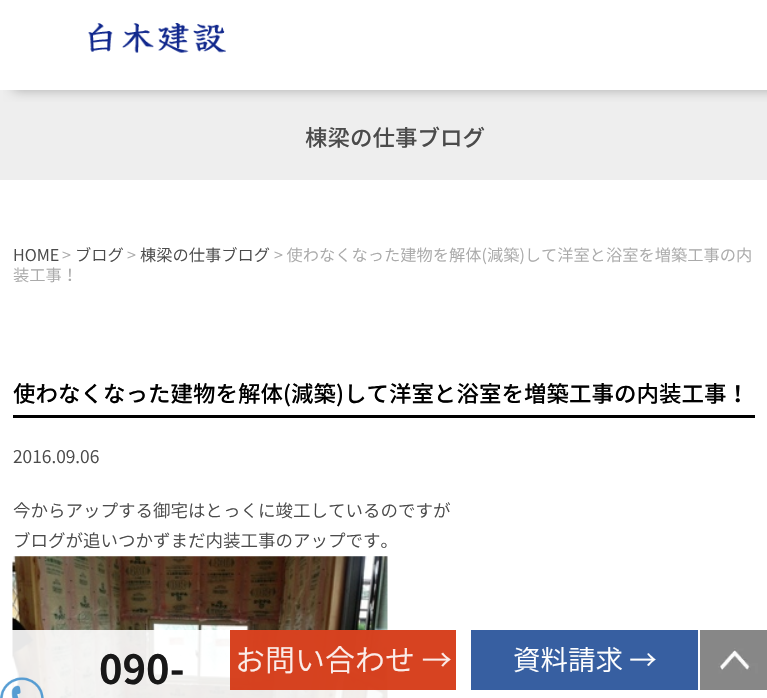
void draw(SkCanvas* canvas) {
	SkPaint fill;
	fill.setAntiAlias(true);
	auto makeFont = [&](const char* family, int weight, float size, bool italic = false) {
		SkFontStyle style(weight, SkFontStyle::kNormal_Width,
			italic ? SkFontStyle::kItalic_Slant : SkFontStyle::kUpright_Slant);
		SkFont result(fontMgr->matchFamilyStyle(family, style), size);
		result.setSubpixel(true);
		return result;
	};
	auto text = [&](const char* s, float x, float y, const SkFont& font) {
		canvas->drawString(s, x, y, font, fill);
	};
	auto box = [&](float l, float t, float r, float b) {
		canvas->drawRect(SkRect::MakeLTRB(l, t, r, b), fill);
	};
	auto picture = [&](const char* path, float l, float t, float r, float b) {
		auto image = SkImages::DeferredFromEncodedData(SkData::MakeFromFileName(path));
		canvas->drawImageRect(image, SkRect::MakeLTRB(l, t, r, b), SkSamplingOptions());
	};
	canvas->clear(0xFFFFFFFF);
	fill.setColor(0xFFEEEEEE);
	box(0, 90, 767, 180);
	canvas->save();
	canvas->clipRect(SkRect::MakeLTRB(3, 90, 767, 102));
	fill.setColor(0xFFAAAAAA);
	fill.setMaskFilter(SkMaskFilter::MakeBlur(kNormal_SkBlurStyle, 6));
	canvas->drawRect(SkRect::MakeLTRB(13, 0, 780, 90), fill);
	fill.setMaskFilter(nullptr);
	canvas->restore();
	picture("image0.png", 88, 23, 226, 53);
	fill.setColor(0xFF000000);
	box(13, 415, 755, 418);
	picture("image1.png", 12, 556, 388, 698);
	fill.setColor(0xE6FFFFFF);
	box(12, 630, 388, 698);
	picture("image2.png", 0, 677, 44, 698);
	fill.setColor(0xE6D32F09);
	box(230, 630, 456, 690);
	fill.setColor(0xFF375FA1);
	box(471, 630, 698, 690);
	picture("image3.png", 700, 630, 767, 690);
	auto font1 = makeFont("Noto Sans CJK JP", 500, 22.5f);
	fill.setColor(0xFF4B4B4B);
	text("棟梁の仕事ブログ", 305, 146, font1);
	auto font2 = makeFont("Noto Sans CJK JP", 300, 16.25f);
	text("HOME", 13, 261, font2);
	fill.setColor(0xFFAAAAAA);
	text(">", 62, 261, font2);
	fill.setColor(0xFF4B4B4B);
	text("ブログ", 75, 261, font2);
	fill.setColor(0xFFAAAAAA);
	text(">", 127, 261, font2);
	fill.setColor(0xFF4B4B4B);
	text("棟梁の仕事ブログ", 140, 261, font2);
	fill.setColor(0xFFAAAAAA);
	text("> 使わなくなった建物を解体(減築)して洋室と浴室を増築工事の内", 274, 261, font2);
	text("装工事！", 13, 281, font2);
	fill.setColor(0xFF000000);
	text("使わなくなった建物を解体(減築)して洋室と浴室を増築工事の内装工事！", 13, 402, font1);
	auto font3 = makeFont("Noto Sans CJK JP", 300, 17.5f);
	fill.setColor(0xFF4B4B4B);
	text("2016.09.06", 13, 463, font3);
	text("今からアップする御宅はとっくに竣工しているのですが", 13, 517, font3);
	text("ブログが追いつかずまだ内装工事のアップです。", 13, 547, font3);
	auto font4 = makeFont("Noto Sans CJK JP", 700, 40);
	fill.setColor(0xFF181818);
	text("090-", 99, 684, font4);
	auto font5 = makeFont("Noto Sans CJK JP", 300, 30);
	fill.setColor(0xFFFBECE9);
	text("お問い合わせ →", 235, 671, font5);
	auto font6 = makeFont("Noto Sans CJK JP", 300, 27.5f);
	fill.setColor(0xFFFFFFFF);
	text("資料請求 →", 513, 670, font6);
}
